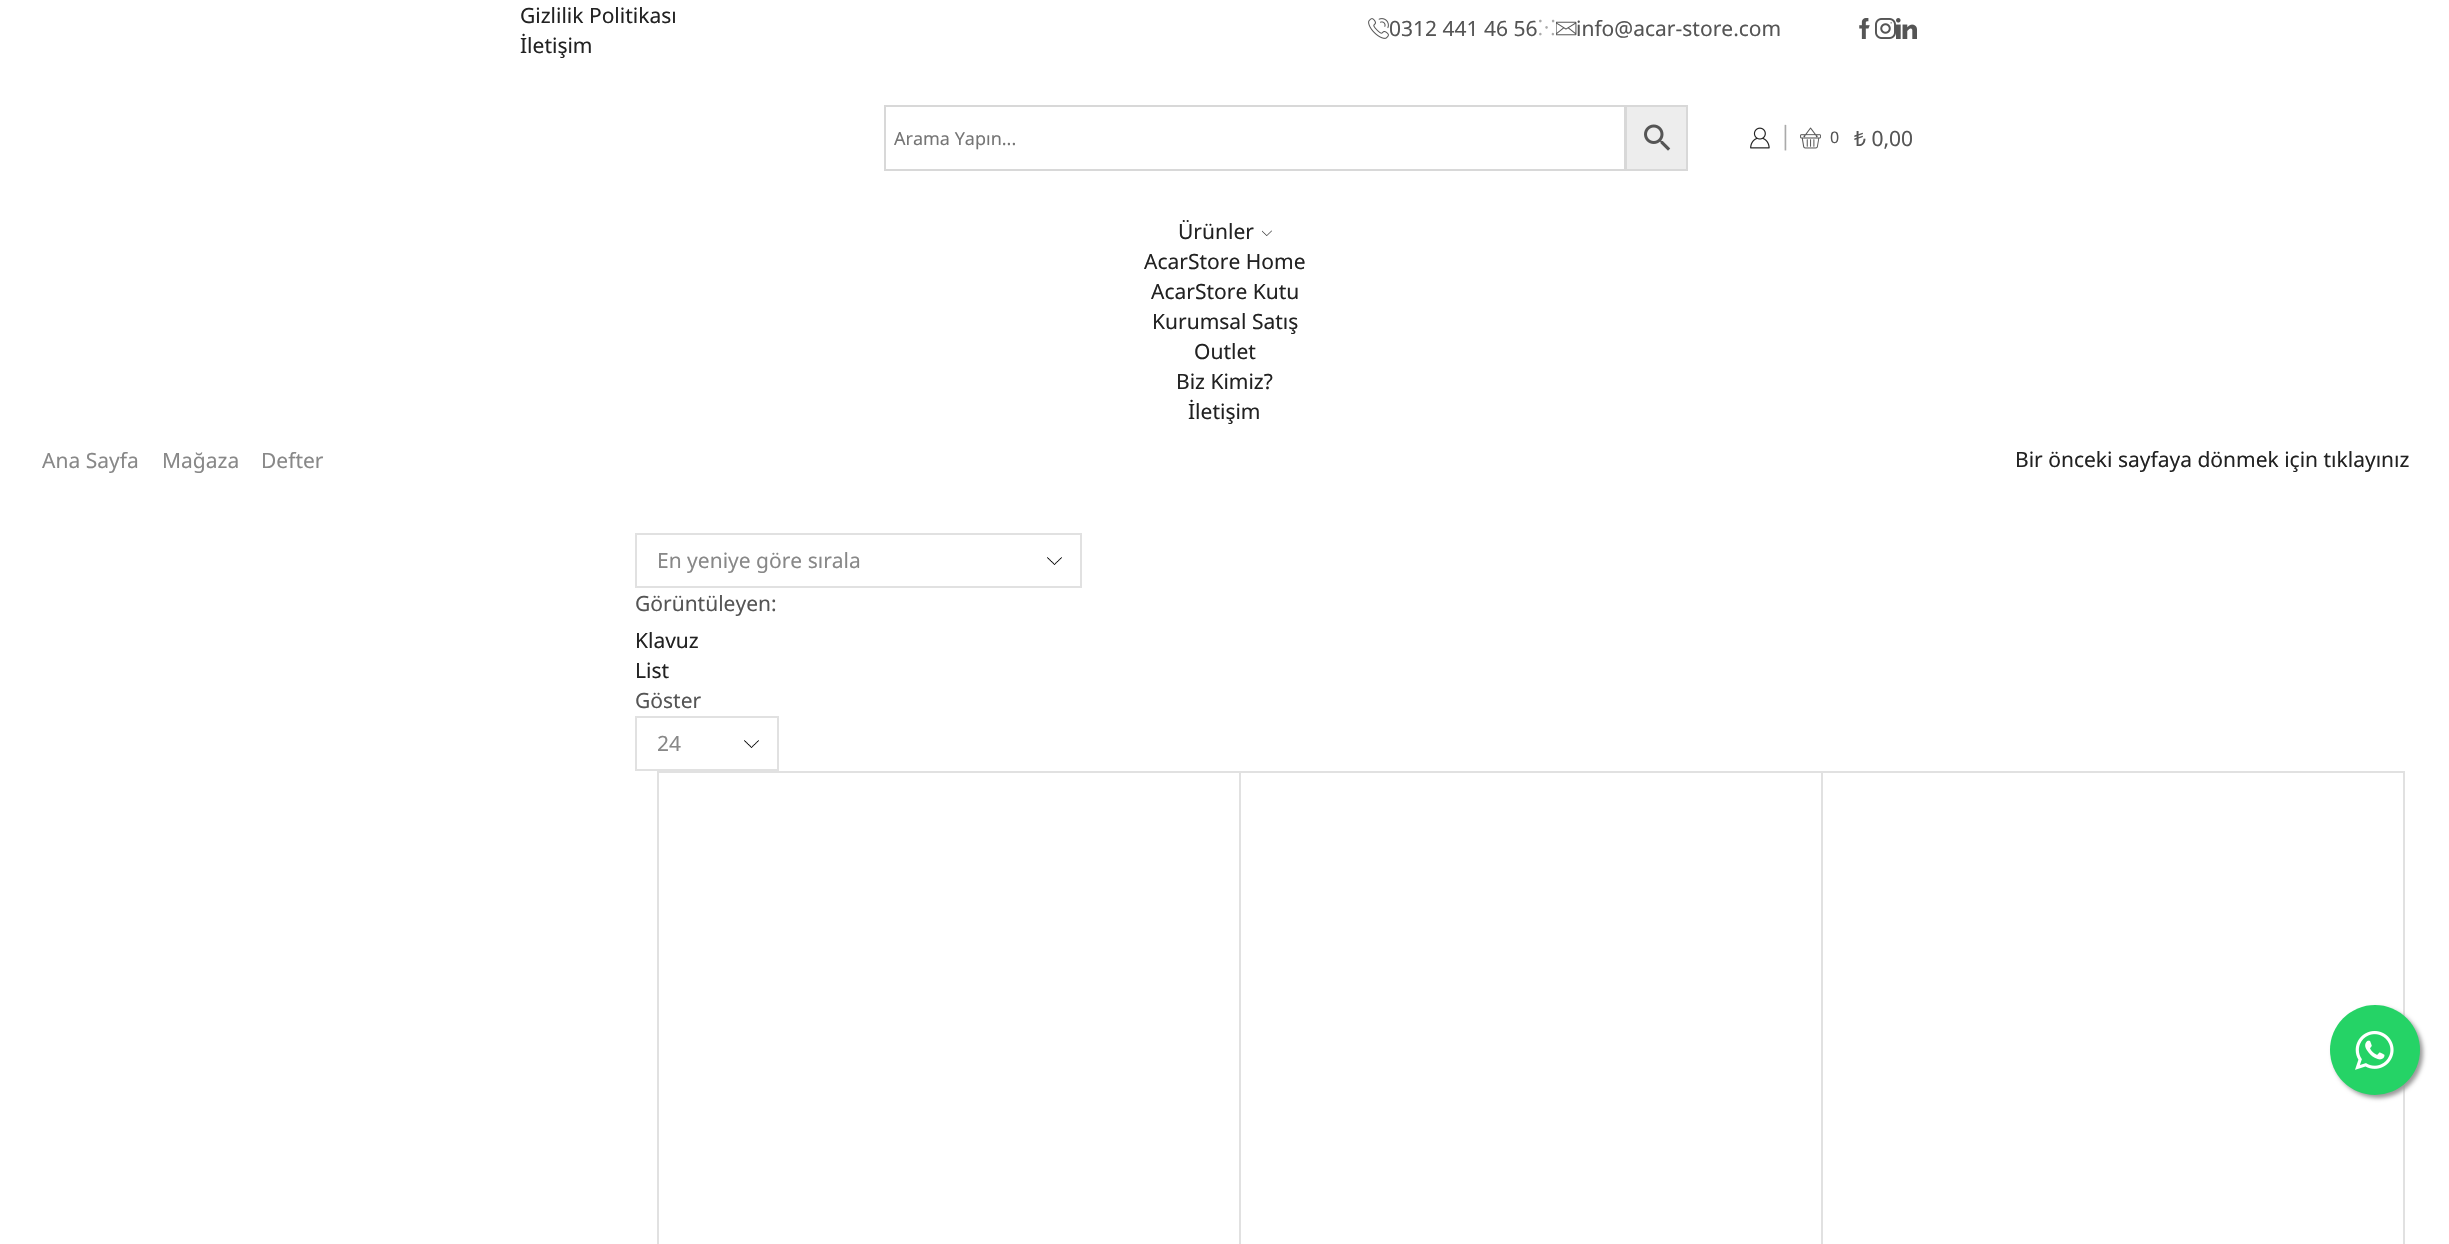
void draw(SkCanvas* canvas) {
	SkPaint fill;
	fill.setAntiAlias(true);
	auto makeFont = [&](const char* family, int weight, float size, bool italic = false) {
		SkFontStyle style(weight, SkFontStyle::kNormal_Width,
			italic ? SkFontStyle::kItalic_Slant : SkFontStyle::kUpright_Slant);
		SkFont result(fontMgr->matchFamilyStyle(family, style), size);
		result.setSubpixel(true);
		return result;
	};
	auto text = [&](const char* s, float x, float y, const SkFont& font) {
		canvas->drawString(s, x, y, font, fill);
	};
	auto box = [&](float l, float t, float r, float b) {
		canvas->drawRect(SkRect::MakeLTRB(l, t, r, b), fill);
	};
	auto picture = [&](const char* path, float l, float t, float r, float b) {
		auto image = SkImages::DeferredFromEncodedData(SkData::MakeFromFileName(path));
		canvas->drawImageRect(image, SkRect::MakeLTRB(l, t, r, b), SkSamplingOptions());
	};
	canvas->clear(0xFFFFFFFF);
	picture("image0.png", 1368, 18, 1389, 39);
	picture("image1.png", 1556, 21, 1577, 36);
	picture("image2.png", 1859, 18, 1870, 39);
	picture("image3.png", 1875, 18, 1896, 39);
	picture("image4.png", 1896, 18, 1917, 39);
	fill.setColor(0xFFEDEDED);
	canvas->drawRect(SkRect::MakeLTRB(1626, 106, 1687, 170), fill);
	fill.setStyle(SkPaint::kStroke_Style);
	fill.setStrokeWidth(2);
	fill.setColor(0xFFD8D8D8);
	canvas->drawRect(SkRect::MakeLTRB(1626, 106, 1687, 170), fill);
	canvas->drawRect(SkRect::MakeLTRB(885, 106, 1625, 170), fill);
	picture("image5.png", 1644, 124, 1671, 151);
	picture("image6.png", 1750, 127, 1770, 149);
	picture("image7.png", 1800, 127, 1821, 149);
	picture("image8.png", 1262, 230, 1272, 236);
	picture("image9.png", 1047, 557, 1062, 565);
	fill.setColor(0xFFE1E1E1);
	canvas->drawRect(SkRect::MakeLTRB(636, 534, 1081, 587), fill);
	picture("image9.png", 744, 740, 759, 748);
	canvas->drawRect(SkRect::MakeLTRB(636, 717, 778, 770), fill);
	fill.setStyle(SkPaint::kFill_Style);
	box(657, 771, 2405, 773);
	box(657, 771, 659, 1244);
	box(1239, 773, 1241, 1244);
	box(1821, 773, 1823, 1244);
	box(2403, 773, 2405, 1244);
	fill.setColor(0xFF999999);
	fill.setMaskFilter(SkMaskFilter::MakeBlur(kNormal_SkBlurStyle, 2));
	canvas->drawRoundRect(SkRect::MakeLTRB(2333, 1008, 2423, 1098), 45, 45, fill);
	fill.setMaskFilter(nullptr);
	fill.setColor(0xFF25D366);
	canvas->drawCircle(2375, 1050, 45, fill);
	picture("image10.png", 2355, 1031, 2394, 1070);
	auto font1 = makeFont("Noto Sans", 400, 21);
	fill.setColor(0xFF222222);
	text("Gizlilik Politikası", 520, 23, font1);
	text("İletişim", 520, 53, font1);
	fill.setColor(0xFF555555);
	text("0312 441 46 56", 1389, 36, font1);
	fill.setColor(0xFFAAAAAA);
	text("⁙", 1538, 35, font1);
	fill.setColor(0xFF555555);
	text("info@acar-store.com", 1576, 36, font1);
	auto font2 = makeFont("Noto Sans", 400, 18);
	fill.setColor(0xFF757575);
	text("Arama Yapın...", 894, 145, font2);
	auto font3 = makeFont("Liberation Serif", 400, 21);
	fill.setColor(0xFFAAAAAA);
	text("│", 1778, 144, font3);
	auto font4 = makeFont("Noto Sans", 400, 16);
	fill.setColor(0xFF555555);
	text("0", 1830, 143, font4);
	text("₺ 0,00", 1854, 146, font1);
	fill.setColor(0xFF222222);
	text("Ürünler", 1178, 239, font1);
	text("AcarStore Home", 1144, 269, font1);
	text("AcarStore Kutu", 1151, 299, font1);
	text("Kurumsal Satış", 1152, 329, font1);
	text("Outlet", 1194, 359, font1);
	text("Biz Kimiz?", 1176, 389, font1);
	text("İletişim", 1188, 419, font1);
	fill.setColor(0xFF888888);
	text("Ana Sayfa", 42, 468, font1);
	text("Mağaza", 162, 468, font1);
	text("Defter", 261, 468, font1);
	fill.setColor(0xFF222222);
	text("Bir önceki sayfaya dönmek için tıklayınız", 2015, 467, font1);
	fill.setColor(0xFF888888);
	text("En yeniye göre sırala", 657, 568, font1);
	fill.setColor(0xFF555555);
	text("Görüntüleyen:", 635, 611, font1);
	fill.setColor(0xFF222222);
	text("Klavuz", 635, 648, font1);
	text("List", 635, 678, font1);
	fill.setColor(0xFF555555);
	text("Göster", 635, 708, font1);
	fill.setColor(0xFF888888);
	text("24", 657, 751, font1);
}
